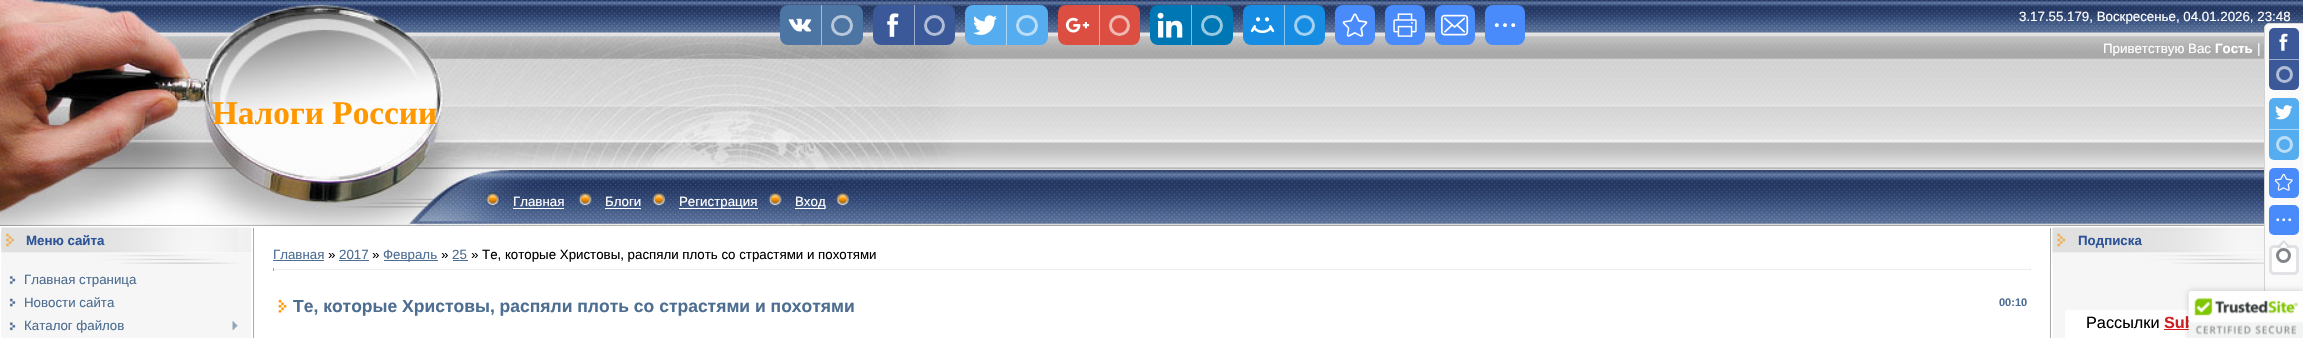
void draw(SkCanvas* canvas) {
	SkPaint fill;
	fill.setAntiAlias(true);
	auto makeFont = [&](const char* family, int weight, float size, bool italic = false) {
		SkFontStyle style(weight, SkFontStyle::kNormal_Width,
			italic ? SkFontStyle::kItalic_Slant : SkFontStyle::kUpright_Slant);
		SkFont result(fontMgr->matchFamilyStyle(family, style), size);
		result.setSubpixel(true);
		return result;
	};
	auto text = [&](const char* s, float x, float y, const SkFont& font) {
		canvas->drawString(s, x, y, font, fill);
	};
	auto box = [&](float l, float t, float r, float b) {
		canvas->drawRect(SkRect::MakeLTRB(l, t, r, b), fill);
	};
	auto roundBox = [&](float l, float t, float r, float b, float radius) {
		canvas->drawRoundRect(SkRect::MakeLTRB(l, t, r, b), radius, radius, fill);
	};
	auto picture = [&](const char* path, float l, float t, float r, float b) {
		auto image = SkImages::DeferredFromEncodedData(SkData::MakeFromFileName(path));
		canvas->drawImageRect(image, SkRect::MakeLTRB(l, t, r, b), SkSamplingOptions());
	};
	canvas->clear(0xFFFFFFFF);
	picture("image10.png", 971, 0, 2303, 226);
	picture("image12.png", 450, 0, 972, 226);
	fill.setColor(0xFF4D75A3);
	roundBox(780, 5, 863, 45, 8);
	picture("image0.png", 788, 18, 812, 32);
	fill.setColor(0xFFA6BAD1);
	box(821, 5, 822, 45);
	fill.setStyle(SkPaint::kStroke_Style);
	fill.setStrokeWidth(3);
	fill.setColor(0xFFB8C8DA);
	canvas->drawRoundRect(SkRect::MakeLTRB(832.5f, 16.5f, 851.5f, 34.5f), 9, 9, fill);
	fill.setStyle(SkPaint::kFill_Style);
	fill.setColor(0xFF3B5998);
	roundBox(873, 5, 955, 45, 8);
	picture("image1.png", 887, 13, 899, 37);
	fill.setColor(0xFF9DACCC);
	box(914, 5, 915, 45);
	fill.setStyle(SkPaint::kStroke_Style);
	fill.setColor(0xFFB1BDD6);
	canvas->drawCircle(934.5f, 25.5f, 9, fill);
	fill.setStyle(SkPaint::kFill_Style);
	fill.setColor(0xFF55ACEE);
	roundBox(965, 5, 1048, 45, 8);
	picture("image2.png", 973, 15, 997, 35);
	fill.setColor(0xFFAAD6F7);
	box(1006, 5, 1007, 45);
	fill.setStyle(SkPaint::kStroke_Style);
	fill.setColor(0xFFBBDEF8);
	canvas->drawRoundRect(SkRect::MakeLTRB(1017.5f, 16.5f, 1036.5f, 34.5f), 9, 9, fill);
	fill.setStyle(SkPaint::kFill_Style);
	fill.setColor(0xFFDC4E41);
	roundBox(1058, 5, 1140, 45, 8);
	picture("image3.png", 1065, 17, 1090, 33);
	fill.setColor(0xFFEEA7A0);
	box(1099, 5, 1100, 45);
	fill.setStyle(SkPaint::kStroke_Style);
	fill.setColor(0xFFF1B8B3);
	canvas->drawCircle(1119.5f, 25.5f, 9, fill);
	fill.setStyle(SkPaint::kFill_Style);
	fill.setColor(0xFF0077B5);
	roundBox(1150, 5, 1233, 45, 8);
	picture("image4.png", 1157, 12, 1183, 38);
	fill.setColor(0xFF80BBDA);
	box(1191, 5, 1192, 45);
	fill.setStyle(SkPaint::kStroke_Style);
	fill.setColor(0xFF99C9E1);
	canvas->drawRoundRect(SkRect::MakeLTRB(1202.5f, 16.5f, 1221.5f, 34.5f), 9, 9, fill);
	fill.setStyle(SkPaint::kFill_Style);
	fill.setColor(0xFF168DE2);
	roundBox(1243, 5, 1325, 45, 8);
	picture("image5.png", 1250, 17, 1275, 34);
	fill.setColor(0xFF8BC6F1);
	box(1284, 5, 1285, 45);
	fill.setStyle(SkPaint::kStroke_Style);
	fill.setColor(0xFFA2D1F3);
	canvas->drawCircle(1304.5f, 25.5f, 9, fill);
	fill.setStyle(SkPaint::kFill_Style);
	fill.setColor(0xFF498BFA);
	roundBox(1335, 5, 1375, 45, 8);
	picture("image6.png", 1342, 13, 1368, 37);
	roundBox(1385, 5, 1425, 45, 8);
	picture("image7.png", 1393, 13, 1417, 37);
	roundBox(1435, 5, 1475, 45, 8);
	picture("image8.png", 1441, 14, 1469, 36);
	roundBox(1485, 5, 1525, 45, 8);
	picture("image9.png", 1494, 23, 1516, 28);
	picture("image11.png", 0, 0, 450, 226);
	picture("image13.png", 486, 192, 501, 207);
	fill.setColor(0xFFFFFFFF);
	box(513, 208, 564, 209);
	picture("image14.png", 578, 192, 593, 207);
	box(605, 208, 641, 209);
	picture("image15.png", 652, 192, 667, 207);
	box(679, 208, 758, 209);
	picture("image16.png", 768, 192, 783, 207);
	box(795, 208, 825, 209);
	picture("image17.png", 836, 192, 850, 207);
	picture("image18.png", 1, 227, 252, 253);
	picture("image19.png", 1, 253, 251, 265);
	fill.setColor(0xFFF6F6F6);
	box(1, 265, 251, 338);
	picture("image20.png", 9, 276, 16, 284);
	picture("image21.png", 9, 298, 16, 307);
	picture("image22.png", 9, 322, 16, 331);
	picture("image23.png", 232, 321, 238, 330);
	fill.setColor(0xFFA9A9A9);
	box(2050, 228, 2051, 338);
	box(253, 228, 254, 338);
	fill.setColor(0xFF4D6D91);
	box(273, 260, 324, 261);
	box(339, 260, 369, 261);
	box(384, 260, 438, 261);
	box(453, 260, 468, 261);
	fill.setColor(0xFFEEEEEE);
	box(2030, 268, 2031, 271);
	box(273, 269, 2031, 270);
	fill.setColor(0xFF9F9F9F);
	box(273, 268, 274, 271);
	picture("image24.png", 278, 300, 287, 313);
	picture("image25.png", 2052, 227, 2264, 253);
	picture("image26.png", 2052, 253, 2264, 265);
	fill.setColor(0xFFF6F6F6);
	box(2053, 265, 2264, 338);
	fill.setColor(0xFFFFFFFF);
	box(2065, 310, 2189, 338);
	fill.setColor(0xFFCE2020);
	box(2164, 329, 2189, 330);
	auto font1 = makeFont("Liberation Serif", 700, 33.25f);
	fill.setColor(0xFFFF9800);
	text("Налоги России", 212, 124, font1);
	auto font2 = makeFont("Liberation Sans", 400, 13.3f);
	fill.setColor(0xFFFFFFFF);
	text("3.17.55.179, Воскресенье, 04.01.2026, 23:48", 2019, 21, font2);
	text("Приветствую Вас", 2103, 53, font2);
	auto font3 = makeFont("Liberation Sans", 700, 13.3f);
	text("Гость", 2215, 53, font3);
	text("|", 2257, 53, font2);
	text("Главная", 513, 206, font2);
	text("Блоги", 605, 206, font2);
	text("Регистрация", 679, 206, font2);
	text("Вход", 795, 206, font2);
	fill.setColor(0xFF2C5497);
	text("Меню сайта", 26, 245, font3);
	fill.setColor(0xFF4D6D91);
	text("Главная страница", 24, 284, font2);
	text("Новости сайта", 24, 307, font2);
	text("Каталог файлов", 24, 330, font2);
	text("Главная", 273, 259, font2);
	fill.setColor(0xFF000000);
	text("»", 328, 259, font2);
	fill.setColor(0xFF4D6D91);
	text("2017", 339, 259, font2);
	fill.setColor(0xFF000000);
	text("»", 372, 259, font2);
	fill.setColor(0xFF4D6D91);
	text("Февраль", 383, 259, font2);
	fill.setColor(0xFF000000);
	text("»", 441, 259, font2);
	fill.setColor(0xFF4D6D91);
	text("25", 452, 259, font2);
	fill.setColor(0xFF000000);
	text("» Те, которые Христовы, распяли плоть со страстями и похотями", 471, 259, font2);
	auto font4 = makeFont("Liberation Sans", 700, 17.5f);
	fill.setColor(0xFF4D6D91);
	text("Те, которые Христовы, распяли плоть со страстями и похотями", 293, 312, font4);
	auto font5 = makeFont("Liberation Sans", 700, 11);
	text("00:10", 1999, 306, font5);
	fill.setColor(0xFF2C5497);
	text("Подписка", 2078, 245, font3);
	auto font6 = makeFont("Liberation Sans", 400, 16.25f);
	fill.setColor(0xFF000000);
	text("Рассылки", 2086, 328, font6);
	auto font7 = makeFont("Liberation Sans", 700, 16.25f);
	fill.setColor(0xFFCE2020);
	text("Sub", 2164, 328, font7);
	fill.setColor(0xFFFAFAFA);
	canvas->drawPath(SkPathBuilder().moveTo(2269, 23.5f).lineTo(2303.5f, 23.5f).lineTo(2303.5f, 317.5f).lineTo(2269, 317.5f).cubicTo(2266.5f, 317.5f, 2264.5f, 315.5f, 2264.5f, 313).lineTo(2264.5f, 28).cubicTo(2264.5f, 25.5f, 2266.5f, 23.5f, 2269, 23.5f).close().detach(), fill);
	fill.setStyle(SkPaint::kStroke_Style);
	fill.setStrokeWidth(1);
	fill.setColor(0xFFD4D4D4);
	canvas->drawPath(SkPathBuilder().moveTo(2269, 23.5f).lineTo(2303.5f, 23.5f).lineTo(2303.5f, 317.5f).lineTo(2269, 317.5f).cubicTo(2266.5f, 317.5f, 2264.5f, 315.5f, 2264.5f, 313).lineTo(2264.5f, 28).cubicTo(2264.5f, 25.5f, 2266.5f, 23.5f, 2269, 23.5f).close().detach(), fill);
	fill.setStyle(SkPaint::kFill_Style);
	fill.setColor(0xFF3B5998);
	roundBox(2269, 28, 2299, 90, 5);
	picture("image27.png", 2279, 33, 2288, 51);
	fill.setColor(0xFF9DACCC);
	box(2269, 59, 2299, 60);
	fill.setStyle(SkPaint::kStroke_Style);
	fill.setStrokeWidth(3);
	fill.setColor(0xFFB1BDD6);
	canvas->drawCircle(2284.5f, 74.5f, 7, fill);
	fill.setStyle(SkPaint::kFill_Style);
	fill.setColor(0xFF55ACEE);
	roundBox(2269, 98, 2299, 160, 5);
	picture("image28.png", 2275, 105, 2293, 120);
	fill.setColor(0xFFAAD6F7);
	box(2269, 129, 2299, 130);
	fill.setStyle(SkPaint::kStroke_Style);
	fill.setColor(0xFFBBDEF8);
	canvas->drawCircle(2284.5f, 144.5f, 7, fill);
	fill.setStyle(SkPaint::kFill_Style);
	fill.setColor(0xFF498BFA);
	roundBox(2269, 168, 2299, 198, 5);
	picture("image29.png", 2274, 173, 2293, 191);
	roundBox(2269, 205, 2299, 235, 5);
	picture("image30.png", 2276, 218, 2292, 222);
	fill.setColor(0xFFFFFFFF);
	canvas->drawRoundRect(SkRect::MakeLTRB(2270.5f, 246.5f, 2297.5f, 273.5f), 3.5f, 3.5f, fill);
	fill.setStyle(SkPaint::kStroke_Style);
	fill.setColor(0xFFE0E2E6);
	canvas->drawRoundRect(SkRect::MakeLTRB(2270.5f, 246.5f, 2297.5f, 273.5f), 3.5f, 3.5f, fill);
	fill.setStyle(SkPaint::kFill_Style);
	fill.setColor(0xFFD8DCDE);
	canvas->drawPath(SkPathBuilder().moveTo(2291, 247.5f).lineTo(2276, 247.5f).lineTo(2284, 240).close().detach(), fill);
	fill.setColor(0xFFFFFFFF);
	canvas->drawPath(SkPathBuilder().moveTo(2287.5f, 247.5f).lineTo(2280, 247.5f).lineTo(2284, 242.5f).close().detach(), fill);
	fill.setStyle(SkPaint::kStroke_Style);
	fill.setColor(0xFF81858B);
	canvas->drawCircle(2283.5f, 255.5f, 6, fill);
	fill.setStyle(SkPaint::kFill_Style);
	fill.setColor(0x33000000);
	fill.setMaskFilter(SkMaskFilter::MakeBlur(kNormal_SkBlurStyle, 3));
	canvas->drawRoundRect(SkRect::MakeLTRB(2189, 291, 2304, 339), 2.5f, 2.5f, fill);
	fill.setMaskFilter(nullptr);
	fill.setColor(0xFFFFFFFF);
	canvas->drawPath(SkPathBuilder().moveTo(2191.5f, 291).lineTo(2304, 291).lineTo(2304, 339).lineTo(2189, 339).lineTo(2189, 293.5f).cubicTo(2189, 292, 2190, 291, 2191.5f, 291).close().detach(), fill);
	picture("image31.png", 2188, 291, 2303, 338);
}
